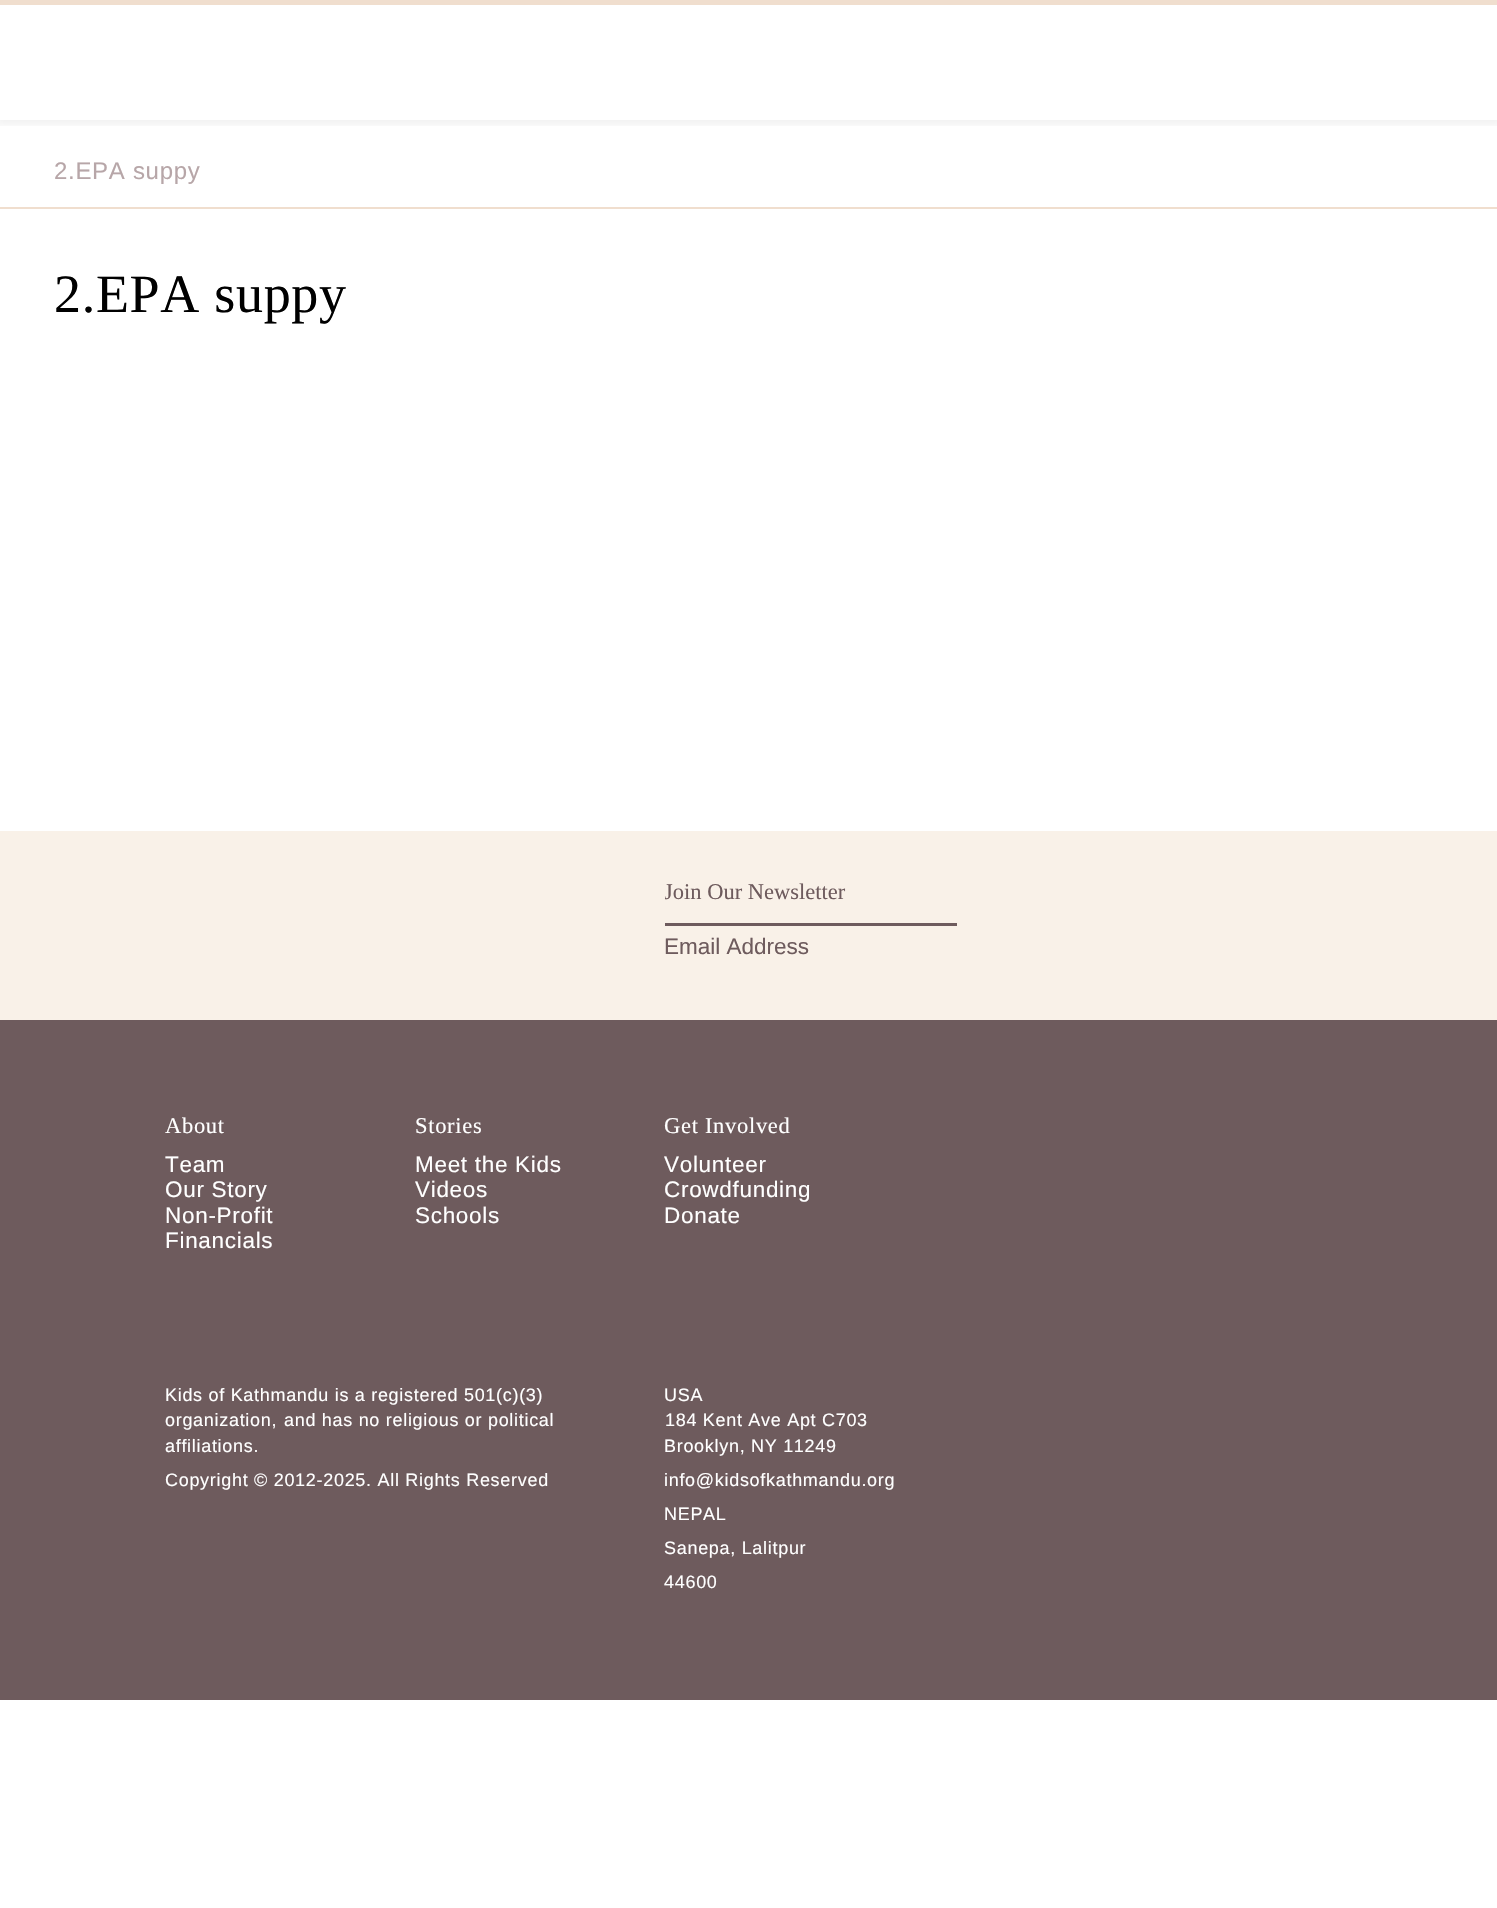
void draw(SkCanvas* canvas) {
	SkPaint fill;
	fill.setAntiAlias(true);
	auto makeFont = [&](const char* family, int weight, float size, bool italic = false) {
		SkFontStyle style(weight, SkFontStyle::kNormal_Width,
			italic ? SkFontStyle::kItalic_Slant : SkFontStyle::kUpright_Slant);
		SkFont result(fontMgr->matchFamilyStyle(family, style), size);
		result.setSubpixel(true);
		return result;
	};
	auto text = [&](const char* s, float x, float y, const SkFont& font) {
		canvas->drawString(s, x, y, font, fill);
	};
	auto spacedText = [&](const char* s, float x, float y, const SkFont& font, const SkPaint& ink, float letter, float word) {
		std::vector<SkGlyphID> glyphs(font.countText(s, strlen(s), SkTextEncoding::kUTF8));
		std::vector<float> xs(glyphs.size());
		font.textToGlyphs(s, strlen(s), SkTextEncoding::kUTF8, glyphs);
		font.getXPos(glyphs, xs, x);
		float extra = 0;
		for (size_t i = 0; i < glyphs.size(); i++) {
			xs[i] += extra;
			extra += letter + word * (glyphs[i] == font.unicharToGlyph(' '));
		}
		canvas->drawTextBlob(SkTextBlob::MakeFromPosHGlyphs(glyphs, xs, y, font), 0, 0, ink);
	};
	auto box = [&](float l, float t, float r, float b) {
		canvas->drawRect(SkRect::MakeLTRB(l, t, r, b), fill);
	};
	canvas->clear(0xFFFFFFFF);
	canvas->save();
	canvas->clipRect(SkRect::MakeLTRB(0, 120, 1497, 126));
	fill.setColor(0x0D000000);
	fill.setMaskFilter(SkMaskFilter::MakeBlur(kNormal_SkBlurStyle, 4));
	canvas->drawRect(SkRect::MakeLTRB(-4, -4, 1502, 125), fill);
	fill.setMaskFilter(nullptr);
	canvas->restore();
	fill.setColor(0xFFF0DECE);
	box(0, 0, 1497, 5);
	box(0, 207, 1497, 209);
	fill.setColor(0xFF6E5B5D);
	box(0, 1020, 1497, 1700);
	fill.setColor(0xFFF9F1E8);
	box(0, 831, 1497, 1020);
	fill.setColor(0xFF6E5B5D);
	box(665, 923, 957, 926);
	auto font1 = makeFont("Liberation Sans", 400, 24);
	fill.setColor(0xFFB7A6A8);
	spacedText("2.EPA suppy", 54, 179, font1, fill, 0.7f, 0);
	auto font2 = makeFont("Liberation Serif", 400, 54);
	fill.setColor(0xFF000000);
	spacedText("2.EPA suppy", 54, 312, font2, fill, 0.7f, 0);
	canvas->save();
	canvas->clipRect(SkRect::MakeLTRB(665, 872, 855, 926));
	auto font3 = makeFont("Liberation Serif", 400, 22.5f);
	fill.setColor(0xFF6E5B5D);
	text("Join Our Newsletter", 664, 899, font3);
	canvas->restore();
	auto font4 = makeFont("Liberation Sans", 400, 22.5f);
	text("Email Address", 664, 954, font4);
	fill.setColor(0xFFFFFFFF);
	spacedText("About", 165, 1133, font3, fill, 0.7f, 0);
	spacedText("Team", 165, 1172, font4, fill, 0.7f, 0);
	spacedText("Our Story", 165, 1197, font4, fill, 0.7f, 0);
	spacedText("Non-Profit", 165, 1223, font4, fill, 0.7f, 0);
	spacedText("Financials", 165, 1248, font4, fill, 0.7f, 0);
	spacedText("Stories", 415, 1133, font3, fill, 0.7f, 0);
	spacedText("Meet the Kids", 415, 1172, font4, fill, 0.7f, 0);
	spacedText("Videos", 415, 1197, font4, fill, 0.7f, 0);
	spacedText("Schools", 415, 1223, font4, fill, 0.7f, 0);
	spacedText("Get Involved", 664, 1133, font3, fill, 0.7f, 0);
	spacedText("Volunteer", 664, 1172, font4, fill, 0.7f, 0);
	spacedText("Crowdfunding", 664, 1197, font4, fill, 0.7f, 0);
	spacedText("Donate", 664, 1223, font4, fill, 0.7f, 0);
	auto font5 = makeFont("Liberation Sans", 400, 18);
	spacedText("Kids of Kathmandu is a registered 501(c)(3)", 165, 1401, font5, fill, 0.7f, 0);
	spacedText("organization,", 165, 1426, font5, fill, 0.7f, 0);
	spacedText("and has no religious or political", 284, 1426, font5, fill, 0.7f, 0);
	spacedText("affiliations.", 165, 1452, font5, fill, 0.7f, 0);
	spacedText("Copyright © 2012-2025. All Rights Reserved", 165, 1486, font5, fill, 0.7f, 0);
	spacedText("USA", 664, 1401, font5, fill, 0.7f, 0);
	spacedText("184 Kent Ave Apt C703", 665, 1426, font5, fill, 0.7f, 0);
	spacedText("Brooklyn, NY 11249", 664, 1452, font5, fill, 0.7f, 0);
	spacedText("info@kidsofkathmandu.org", 664, 1486, font5, fill, 0.7f, 0);
	spacedText("NEPAL", 664, 1520, font5, fill, 0.7f, 0);
	spacedText("Sanepa, Lalitpur", 664, 1554, font5, fill, 0.7f, 0);
	spacedText("44600", 664, 1588, font5, fill, 0.7f, 0);
}
